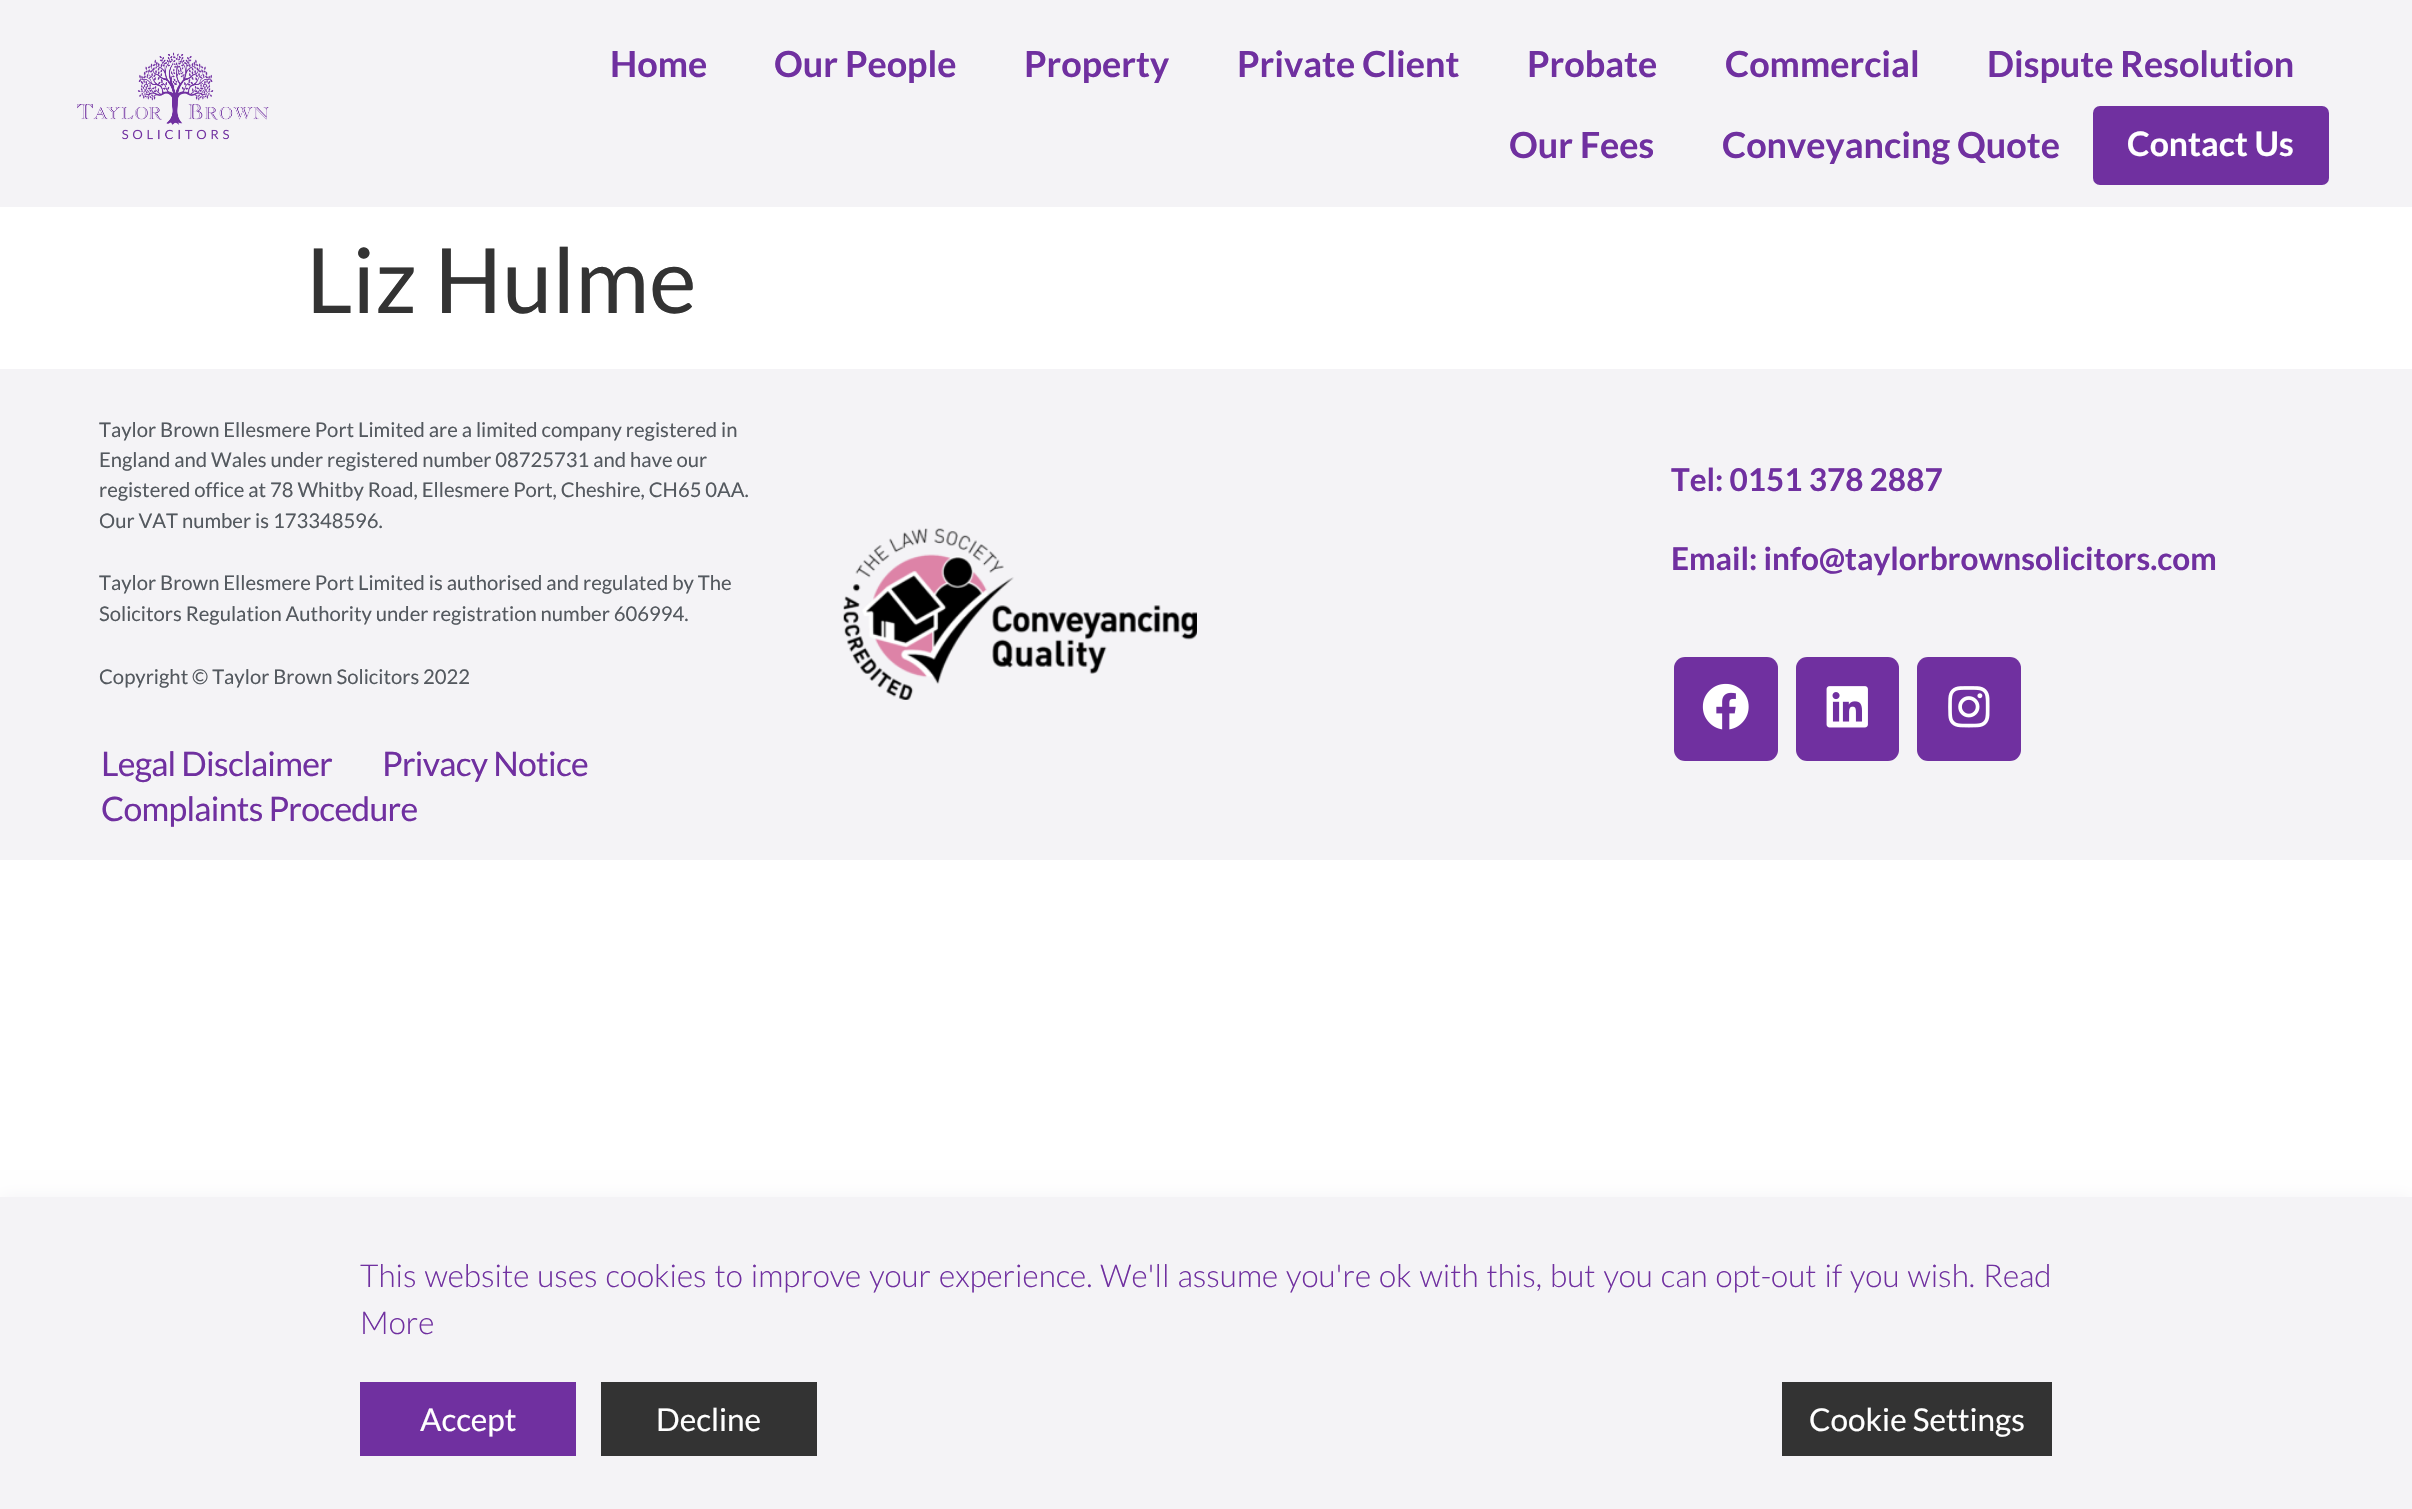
void draw(SkCanvas* canvas) {
	SkPaint fill;
	fill.setAntiAlias(true);
	auto makeFont = [&](const char* family, int weight, float size, bool italic = false) {
		SkFontStyle style(weight, SkFontStyle::kNormal_Width,
			italic ? SkFontStyle::kItalic_Slant : SkFontStyle::kUpright_Slant);
		SkFont result(fontMgr->matchFamilyStyle(family, style), size);
		result.setSubpixel(true);
		return result;
	};
	auto text = [&](const char* s, float x, float y, const SkFont& font) {
		canvas->drawString(s, x, y, font, fill);
	};
	auto spacedText = [&](const char* s, float x, float y, const SkFont& font, const SkPaint& ink, float letter, float word) {
		std::vector<SkGlyphID> glyphs(font.countText(s, strlen(s), SkTextEncoding::kUTF8));
		std::vector<float> xs(glyphs.size());
		font.textToGlyphs(s, strlen(s), SkTextEncoding::kUTF8, glyphs);
		font.getXPos(glyphs, xs, x);
		float extra = 0;
		for (size_t i = 0; i < glyphs.size(); i++) {
			xs[i] += extra;
			extra += letter + word * (glyphs[i] == font.unicharToGlyph(' '));
		}
		canvas->drawTextBlob(SkTextBlob::MakeFromPosHGlyphs(glyphs, xs, y, font), 0, 0, ink);
	};
	auto box = [&](float l, float t, float r, float b) {
		canvas->drawRect(SkRect::MakeLTRB(l, t, r, b), fill);
	};
	auto roundBox = [&](float l, float t, float r, float b, float radius) {
		canvas->drawRoundRect(SkRect::MakeLTRB(l, t, r, b), radius, radius, fill);
	};
	auto picture = [&](const char* path, float l, float t, float r, float b) {
		auto image = SkImages::DeferredFromEncodedData(SkData::MakeFromFileName(path));
		canvas->drawImageRect(image, SkRect::MakeLTRB(l, t, r, b), SkSamplingOptions());
	};
	canvas->clear(0xFFFFFFFF);
	fill.setColor(0xFFF4F3F6);
	box(0, 0, 2412, 207);
	picture("image0.png", 77, 52, 269, 140);
	fill.setColor(0xFF7030A0);
	roundBox(2093, 106, 2329, 185, 7);
	fill.setColor(0xFFF4F3F6);
	box(0, 369, 2412, 860);
	picture("image1.png", 843, 528, 1197, 700);
	fill.setColor(0xFF7030A0);
	roundBox(1674, 657, 1778, 761, 11);
	picture("image2.png", 1702, 683, 1749, 730);
	roundBox(1796, 657, 1899, 761, 11);
	picture("image3.png", 1826, 686, 1868, 728);
	roundBox(1917, 657, 2021, 761, 11);
	picture("image4.png", 1948, 686, 1990, 728);
	fill.setColor(0xFFF4F3F6);
	fill.setMaskFilter(SkMaskFilter::MakeBlur(kNormal_SkBlurStyle, 9));
	canvas->drawRect(SkRect::MakeLTRB(0, 1197, 2412, 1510), fill);
	fill.setMaskFilter(nullptr);
	box(0, 1197, 2412, 1509);
	fill.setColor(0xFF7030A0);
	box(360, 1382, 576, 1456);
	fill.setColor(0xFF333333);
	box(601, 1382, 817, 1456);
	box(1782, 1382, 2052, 1456);
	auto font1 = makeFont("Lato", 700, 36);
	fill.setColor(0xFF7030A0);
	text("Home", 610, 77, font1);
	text("Our People", 774, 77, font1);
	text("Property", 1024, 77, font1);
	text("Private Client", 1237, 77, font1);
	text("Probate", 1527, 77, font1);
	text("Commercial", 1725, 77, font1);
	text("Dispute Resolution", 1987, 77, font1);
	text("Our Fees", 1509, 158, font1);
	text("Conveyancing Quote", 1722, 158, font1);
	auto font2 = makeFont("Lato", 700, 33.75f);
	fill.setColor(0xFFFFFFFF);
	text("Contact Us", 2127, 156, font2);
	auto font3 = makeFont("Lato", 400, 90);
	fill.setColor(0xFF333333);
	text("Liz Hulme", 306, 313, font3);
	auto font4 = makeFont("Lato", 400, 20.25f);
	fill.setColor(0xFF54595F);
	text("Taylor Brown Ellesmere Port Limited are a limited company registered in", 99, 437, font4);
	text("England and Wales under registered number 08725731 and have our", 99, 467, font4);
	text("registered office at 78 Whitby Road, Ellesmere Port, Cheshire, CH65 0AA.", 99, 497, font4);
	text("Our VAT number is 173348596.", 99, 528, font4);
	text("Taylor Brown Ellesmere Port Limited is authorised and regulated by The", 99, 590, font4);
	text("Solicitors Regulation Authority under registration number 606994.", 99, 621, font4);
	text("Copyright © Taylor Brown Solicitors 2022", 99, 684, font4);
	auto font5 = makeFont("Lato", 400, 33.75f);
	fill.setColor(0xFF7030A0);
	spacedText("Legal Disclaimer", 101, 776, font5, fill, -0.7f, 0);
	spacedText("Privacy Notice", 382, 776, font5, fill, -0.7f, 0);
	spacedText("Complaints Procedure", 101, 821, font5, fill, -0.7f, 0);
	auto font6 = makeFont("Lato", 700, 31.5f);
	text("Tel: 0151 378 2887", 1671, 491, font6);
	text("Email: info@taylorbrownsolicitors.com", 1671, 570, font6);
	auto font7 = makeFont("Lato", 300, 31.5f);
	spacedText("This website uses cookies to improve your experience. We'll assume you're ok with this, but you can opt-out if you wish.", 360, 1287, font7, fill, 0, 1.9f);
	text("Read", 1983, 1287, font7);
	text("More", 360, 1334, font7);
	auto font8 = makeFont("Lato", 400, 31.5f);
	fill.setColor(0xFFFFFFFF);
	text("Accept", 420, 1431, font8);
	text("Decline", 656, 1431, font8);
	text("Cookie Settings", 1809, 1431, font8);
}
